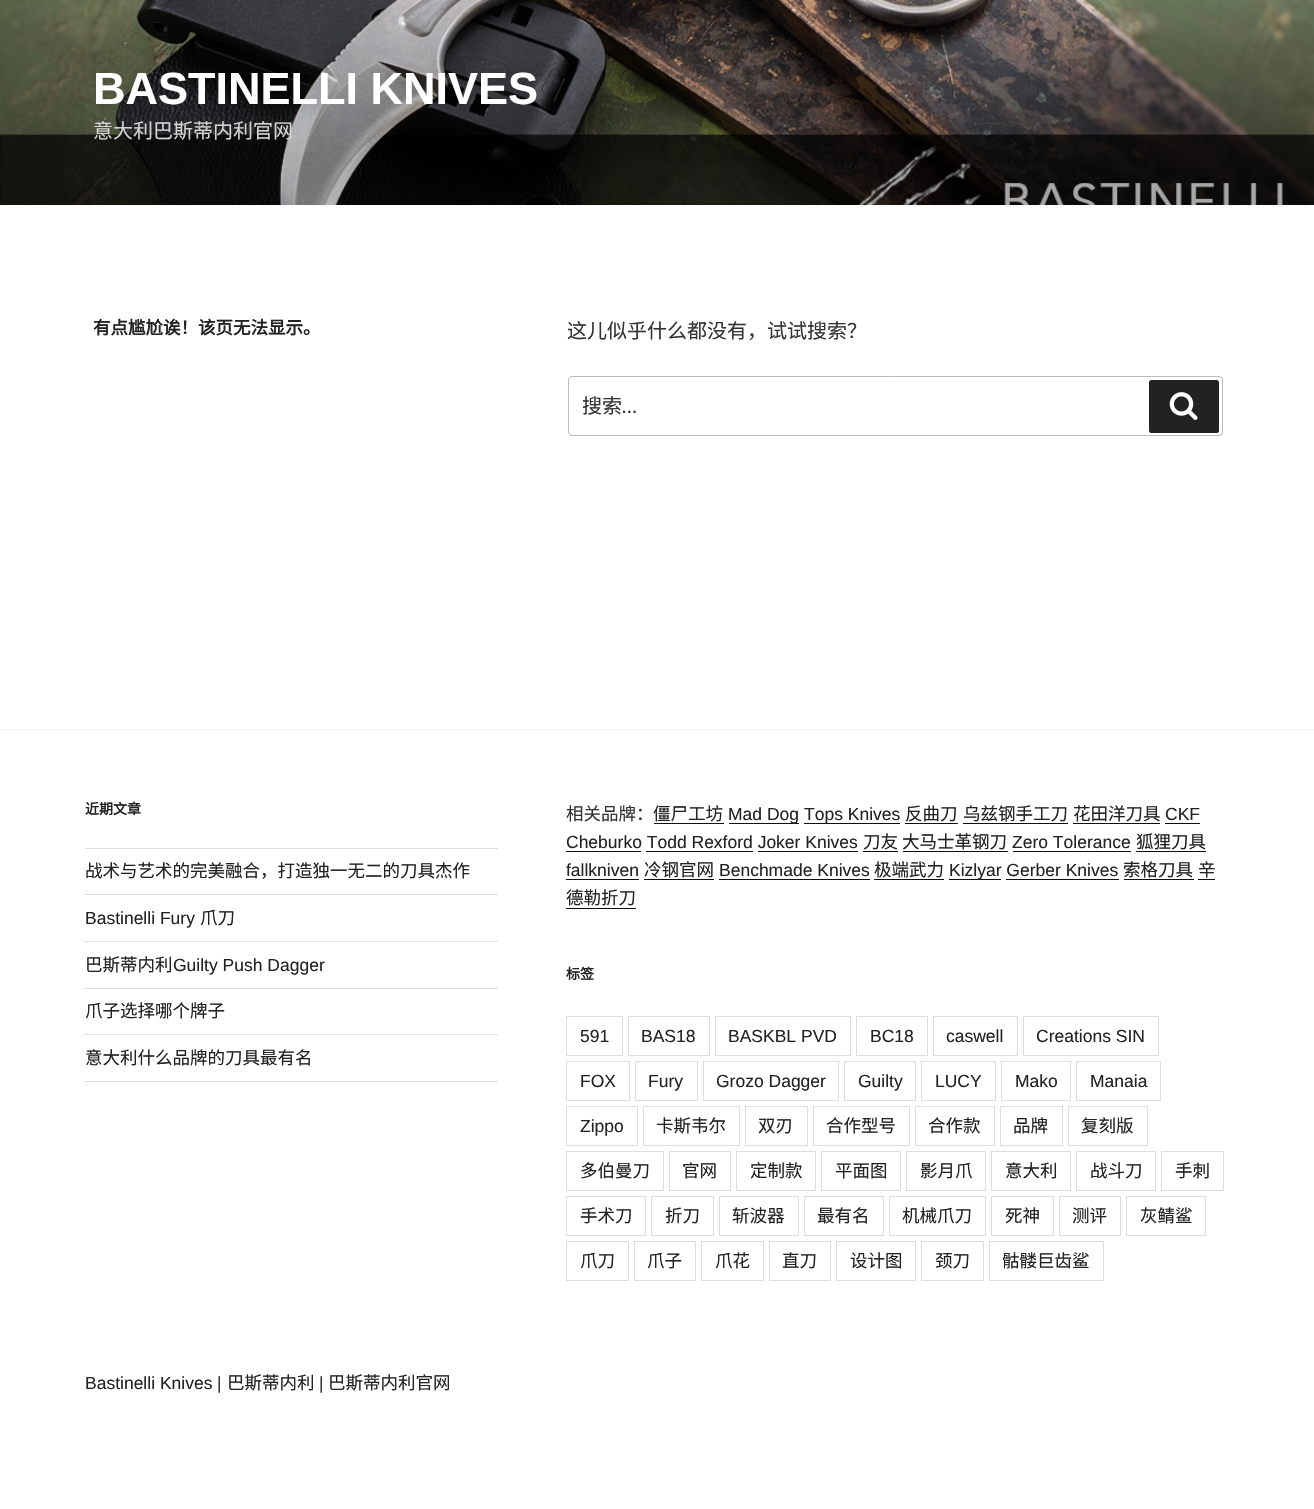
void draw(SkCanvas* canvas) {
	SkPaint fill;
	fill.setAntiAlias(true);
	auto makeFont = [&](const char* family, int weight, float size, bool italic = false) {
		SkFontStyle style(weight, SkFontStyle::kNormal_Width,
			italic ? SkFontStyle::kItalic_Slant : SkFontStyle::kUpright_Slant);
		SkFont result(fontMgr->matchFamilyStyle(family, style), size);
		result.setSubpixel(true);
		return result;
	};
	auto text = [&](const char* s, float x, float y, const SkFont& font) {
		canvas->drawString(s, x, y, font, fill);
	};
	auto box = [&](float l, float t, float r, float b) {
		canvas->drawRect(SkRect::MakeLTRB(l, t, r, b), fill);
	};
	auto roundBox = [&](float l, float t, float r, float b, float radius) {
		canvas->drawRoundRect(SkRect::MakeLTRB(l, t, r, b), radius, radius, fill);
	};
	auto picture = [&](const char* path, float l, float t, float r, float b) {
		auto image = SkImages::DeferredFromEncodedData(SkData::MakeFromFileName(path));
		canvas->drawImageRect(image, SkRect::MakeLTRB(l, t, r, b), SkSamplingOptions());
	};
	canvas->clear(0xFFFFFFFF);
	fill.setColor(0xFFFAFAFA);
	box(0, 205, 1314, 206);
	picture("image0.png", 0, 0, 1314, 205);
	fill.setStyle(SkPaint::kStroke_Style);
	fill.setStrokeWidth(1);
	fill.setColor(0xFFBBBBBB);
	canvas->drawRoundRect(SkRect::MakeLTRB(568.5f, 376.5f, 1222.5f, 435.5f), 3.5f, 3.5f, fill);
	fill.setStyle(SkPaint::kFill_Style);
	fill.setColor(0xFF222222);
	roundBox(1149, 380, 1219, 433, 2.5f);
	picture("image1.png", 1169, 392, 1198, 420);
	fill.setColor(0xFFEEEEEE);
	box(0, 729, 1314, 730);
	fill.setColor(0xFFDDDDDD);
	box(85, 848, 498, 849);
	box(85, 894, 498, 895);
	box(85, 941, 498, 942);
	box(85, 988, 498, 989);
	box(85, 1034, 498, 1035);
	box(85, 1081, 498, 1082);
	fill.setColor(0xFF0F0F0F);
	box(654, 823, 724, 824);
	box(729, 823, 799, 824);
	box(804, 823, 900, 824);
	box(905, 823, 958, 824);
	box(963, 823, 1068, 824);
	box(1073, 823, 1160, 824);
	box(1165, 823, 1200, 824);
	box(566, 851, 641, 852);
	box(863, 851, 898, 852);
	box(903, 851, 1008, 852);
	box(1013, 851, 1131, 852);
	box(1136, 851, 1206, 852);
	box(646, 851, 753, 852);
	box(758, 851, 858, 852);
	box(566, 879, 639, 880);
	box(644, 879, 714, 880);
	box(719, 879, 870, 880);
	box(874, 879, 944, 880);
	box(949, 879, 1001, 880);
	box(1124, 879, 1194, 880);
	box(1198, 879, 1215, 880);
	box(566, 908, 636, 909);
	fill.setStyle(SkPaint::kStroke_Style);
	fill.setColor(0xFFDDDDDD);
	canvas->drawRect(SkRect::MakeLTRB(566.5f, 1016.5f, 622.5f, 1055.5f), fill);
	canvas->drawRect(SkRect::MakeLTRB(628.5f, 1016.5f, 709.5f, 1055.5f), fill);
	canvas->drawRect(SkRect::MakeLTRB(715.5f, 1016.5f, 850.5f, 1055.5f), fill);
	canvas->drawRect(SkRect::MakeLTRB(856.5f, 1016.5f, 927.5f, 1055.5f), fill);
	canvas->drawRect(SkRect::MakeLTRB(933.5f, 1016.5f, 1017.5f, 1055.5f), fill);
	canvas->drawRect(SkRect::MakeLTRB(1023.5f, 1016.5f, 1158.5f, 1055.5f), fill);
	canvas->drawRect(SkRect::MakeLTRB(566.5f, 1061.5f, 629.5f, 1100.5f), fill);
	canvas->drawRect(SkRect::MakeLTRB(635.5f, 1061.5f, 697.5f, 1100.5f), fill);
	canvas->drawRect(SkRect::MakeLTRB(703.5f, 1061.5f, 838.5f, 1100.5f), fill);
	canvas->drawRect(SkRect::MakeLTRB(844.5f, 1061.5f, 915.5f, 1100.5f), fill);
	canvas->drawRect(SkRect::MakeLTRB(921.5f, 1061.5f, 995.5f, 1100.5f), fill);
	canvas->drawRect(SkRect::MakeLTRB(1001.5f, 1061.5f, 1070.5f, 1100.5f), fill);
	canvas->drawRect(SkRect::MakeLTRB(1076.5f, 1061.5f, 1160.5f, 1100.5f), fill);
	canvas->drawRect(SkRect::MakeLTRB(566.5f, 1106.5f, 637.5f, 1145.5f), fill);
	canvas->drawRect(SkRect::MakeLTRB(643.5f, 1106.5f, 739.5f, 1145.5f), fill);
	canvas->drawRect(SkRect::MakeLTRB(745.5f, 1106.5f, 807.5f, 1145.5f), fill);
	canvas->drawRect(SkRect::MakeLTRB(813.5f, 1106.5f, 909.5f, 1145.5f), fill);
	canvas->drawRect(SkRect::MakeLTRB(915.5f, 1106.5f, 994.5f, 1145.5f), fill);
	canvas->drawRect(SkRect::MakeLTRB(1000.5f, 1106.5f, 1062.5f, 1145.5f), fill);
	canvas->drawRect(SkRect::MakeLTRB(1068.5f, 1106.5f, 1147.5f, 1145.5f), fill);
	canvas->drawRect(SkRect::MakeLTRB(566.5f, 1151.5f, 663.5f, 1190.5f), fill);
	canvas->drawRect(SkRect::MakeLTRB(669.5f, 1151.5f, 730.5f, 1190.5f), fill);
	canvas->drawRect(SkRect::MakeLTRB(736.5f, 1151.5f, 815.5f, 1190.5f), fill);
	canvas->drawRect(SkRect::MakeLTRB(821.5f, 1151.5f, 900.5f, 1190.5f), fill);
	canvas->drawRect(SkRect::MakeLTRB(906.5f, 1151.5f, 985.5f, 1190.5f), fill);
	canvas->drawRect(SkRect::MakeLTRB(991.5f, 1151.5f, 1070.5f, 1190.5f), fill);
	canvas->drawRect(SkRect::MakeLTRB(1076.5f, 1151.5f, 1155.5f, 1190.5f), fill);
	canvas->drawRect(SkRect::MakeLTRB(1161.5f, 1151.5f, 1223.5f, 1190.5f), fill);
	canvas->drawRect(SkRect::MakeLTRB(566.5f, 1196.5f, 645.5f, 1235.5f), fill);
	canvas->drawRect(SkRect::MakeLTRB(651.5f, 1196.5f, 713.5f, 1235.5f), fill);
	canvas->drawRect(SkRect::MakeLTRB(719.5f, 1196.5f, 798.5f, 1235.5f), fill);
	canvas->drawRect(SkRect::MakeLTRB(804.5f, 1196.5f, 883.5f, 1235.5f), fill);
	canvas->drawRect(SkRect::MakeLTRB(889.5f, 1196.5f, 985.5f, 1235.5f), fill);
	canvas->drawRect(SkRect::MakeLTRB(991.5f, 1196.5f, 1053.5f, 1235.5f), fill);
	canvas->drawRect(SkRect::MakeLTRB(1059.5f, 1196.5f, 1120.5f, 1235.5f), fill);
	canvas->drawRect(SkRect::MakeLTRB(1126.5f, 1196.5f, 1205.5f, 1235.5f), fill);
	canvas->drawRect(SkRect::MakeLTRB(566.5f, 1241.5f, 628.5f, 1280.5f), fill);
	canvas->drawRect(SkRect::MakeLTRB(634.5f, 1241.5f, 695.5f, 1280.5f), fill);
	canvas->drawRect(SkRect::MakeLTRB(701.5f, 1241.5f, 763.5f, 1280.5f), fill);
	canvas->drawRect(SkRect::MakeLTRB(769.5f, 1241.5f, 830.5f, 1280.5f), fill);
	canvas->drawRect(SkRect::MakeLTRB(836.5f, 1241.5f, 915.5f, 1280.5f), fill);
	canvas->drawRect(SkRect::MakeLTRB(921.5f, 1241.5f, 983.5f, 1280.5f), fill);
	canvas->drawRect(SkRect::MakeLTRB(989.5f, 1241.5f, 1103.5f, 1280.5f), fill);
	auto font1 = makeFont("Liberation Sans", 700, 45);
	fill.setStyle(SkPaint::kFill_Style);
	fill.setColor(0xFFFFFFFF);
	text("BASTINELLI KNIVES", 93, 104, font1);
	auto font2 = makeFont("Noto Sans CJK SC", 400, 20);
	fill.setColor(0xFFD3D3D3);
	text("意大利巴斯蒂内利官网", 93, 138, font2);
	auto font3 = makeFont("Noto Sans CJK SC", 700, 17.5f);
	fill.setColor(0xFF222222);
	text("有点尴尬诶！该页无法显示。", 93, 334, font3);
	fill.setColor(0xFF333333);
	text("这儿似乎什么都没有，试试搜索？", 567, 338, font2);
	text("搜索", 582, 413, font2);
	auto font4 = makeFont("Libre Franklin", 400, 20);
	text("…", 622, 413, font4);
	auto font5 = makeFont("Noto Sans CJK SC", 700, 14);
	fill.setColor(0xFF222222);
	text("近期文章", 85, 814, font5);
	auto font6 = makeFont("Noto Sans CJK SC", 400, 17.5f);
	text("战术与艺术的完美融合，打造独一无二的刀具杰作", 85, 877, font6);
	auto font7 = makeFont("Liberation Sans", 400, 17.5f);
	text("Bastinelli Fury", 85, 924, font7);
	text("爪刀", 200, 924, font6);
	text("巴斯蒂内利", 85, 971, font6);
	text("Guilty Push Dagger", 173, 971, font7);
	text("爪子选择哪个牌子", 85, 1017, font6);
	text("意大利什么品牌的刀具最有名", 85, 1064, font6);
	fill.setColor(0xFF333333);
	text("相关品牌：", 566, 820, font6);
	fill.setColor(0xFF222222);
	text("僵尸工坊", 653, 820, font6);
	text("Mad Dog", 728, 820, font7);
	text("Tops Knives", 804, 820, font7);
	text("反曲刀", 905, 820, font6);
	text("乌兹钢手工刀", 963, 820, font6);
	text("花田洋刀具", 1073, 820, font6);
	text("CKF", 1165, 820, font7);
	text("Cheburko Todd Rexford Joker Knives", 566, 848, font7);
	text("刀友", 863, 848, font6);
	text("大马士革钢刀", 902, 848, font6);
	text("Zero Tolerance", 1012, 848, font7);
	text("狐狸刀具", 1136, 848, font6);
	text("fallkniven", 566, 876, font7);
	text("冷钢官网", 644, 876, font6);
	text("Benchmade Knives", 719, 876, font7);
	text("极端武力", 874, 876, font6);
	text("Kizlyar Gerber Knives", 949, 876, font7);
	text("索格刀具", 1123, 876, font6);
	text("辛", 1198, 876, font6);
	fill.setColor(0xFF0F0F0F);
	box(1006, 879, 1119, 880);
	fill.setColor(0xFF222222);
	text("德勒折刀", 566, 904, font6);
	text("标签", 566, 979, font5);
	text("591", 580, 1042, font7);
	text("BAS18", 641, 1042, font7);
	text("BASKBL PVD", 728, 1042, font7);
	text("BC18", 870, 1042, font7);
	text("caswell", 946, 1042, font7);
	text("Creations SIN", 1036, 1042, font7);
	text("FOX", 580, 1087, font7);
	text("Fury", 648, 1087, font7);
	text("Grozo Dagger", 716, 1087, font7);
	text("Guilty", 858, 1087, font7);
	text("LUCY", 935, 1087, font7);
	text("Mako", 1015, 1087, font7);
	text("Manaia", 1090, 1087, font7);
	text("Zippo", 580, 1132, font7);
	text("卡斯韦尔", 656, 1132, font6);
	text("双刃", 758, 1132, font6);
	text("合作型号", 826, 1132, font6);
	text("合作款", 928, 1132, font6);
	text("品牌", 1013, 1132, font6);
	text("复刻版", 1081, 1132, font6);
	text("多伯曼刀", 580, 1177, font6);
	text("官网", 682, 1177, font6);
	text("定制款", 750, 1177, font6);
	text("平面图", 835, 1177, font6);
	text("影月爪", 920, 1177, font6);
	text("意大利", 1005, 1177, font6);
	text("战斗刀", 1090, 1177, font6);
	text("手刺", 1175, 1177, font6);
	text("手术刀", 580, 1222, font6);
	text("折刀", 665, 1222, font6);
	text("斩波器", 732, 1222, font6);
	text("最有名", 817, 1222, font6);
	text("机械爪刀", 902, 1222, font6);
	text("死神", 1005, 1222, font6);
	text("测评", 1072, 1222, font6);
	text("灰鲭鲨", 1140, 1222, font6);
	text("爪刀", 580, 1267, font6);
	text("爪子", 647, 1267, font6);
	text("爪花", 715, 1267, font6);
	text("直刀", 782, 1267, font6);
	text("设计图", 850, 1267, font6);
	text("颈刀", 935, 1267, font6);
	text("骷髅巨齿鲨", 1002, 1267, font6);
	text("Bastinelli Knives", 85, 1389, font7);
	fill.setColor(0xFF333333);
	text("|", 217, 1389, font7);
	fill.setColor(0xFF222222);
	text("巴斯蒂内利", 227, 1389, font6);
	fill.setColor(0xFF333333);
	text("|", 319, 1389, font7);
	fill.setColor(0xFF222222);
	text("巴斯蒂内利官网", 328, 1389, font6);
}
